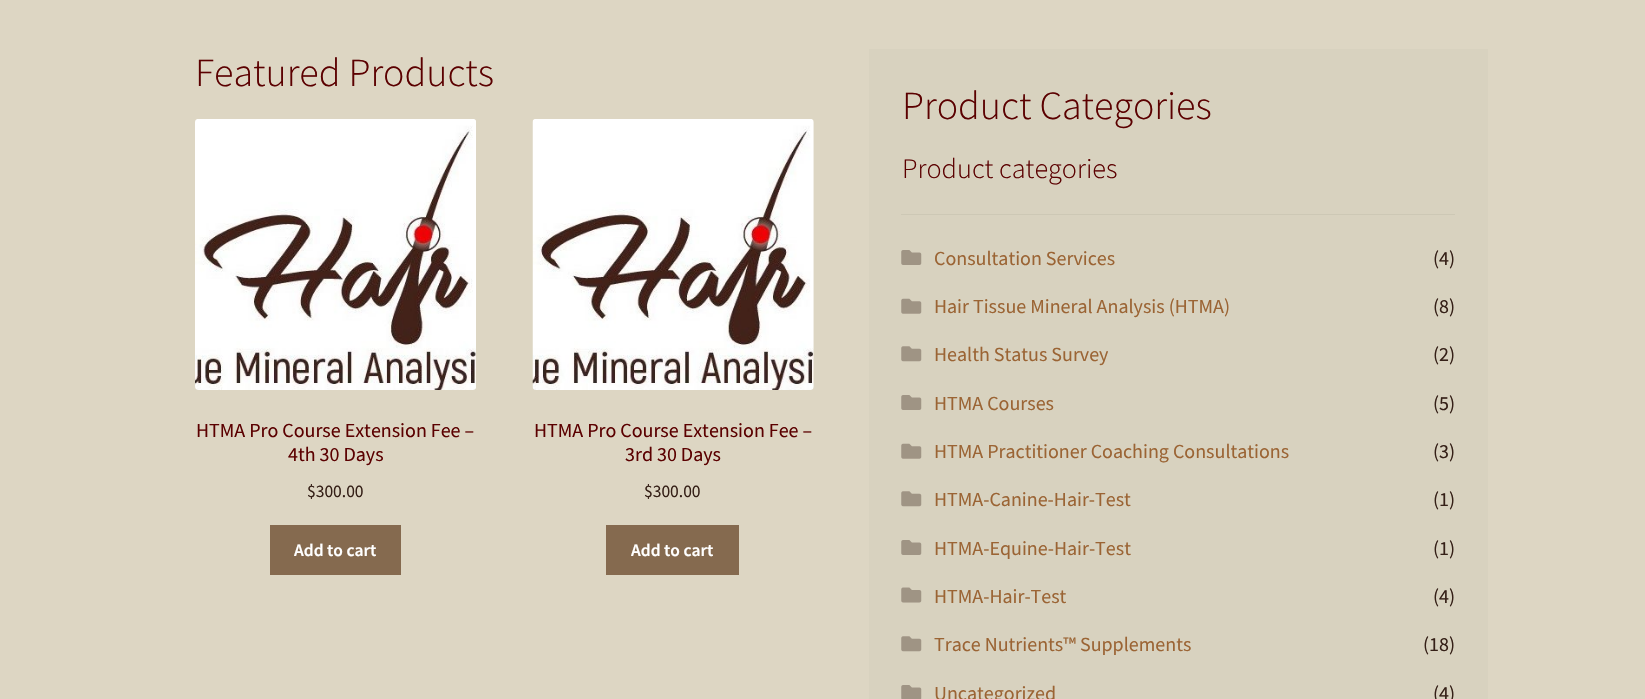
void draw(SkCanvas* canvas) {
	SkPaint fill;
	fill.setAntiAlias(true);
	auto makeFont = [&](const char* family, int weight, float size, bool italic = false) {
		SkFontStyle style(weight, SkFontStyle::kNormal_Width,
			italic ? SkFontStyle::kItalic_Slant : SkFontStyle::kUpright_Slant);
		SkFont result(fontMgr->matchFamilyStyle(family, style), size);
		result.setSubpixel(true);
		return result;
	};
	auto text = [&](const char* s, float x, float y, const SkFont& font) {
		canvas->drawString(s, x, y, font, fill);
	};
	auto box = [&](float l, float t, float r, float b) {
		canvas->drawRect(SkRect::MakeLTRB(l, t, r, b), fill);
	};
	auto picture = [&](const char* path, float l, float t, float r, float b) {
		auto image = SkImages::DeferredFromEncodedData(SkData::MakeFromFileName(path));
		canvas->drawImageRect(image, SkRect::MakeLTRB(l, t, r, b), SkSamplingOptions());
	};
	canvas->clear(0xFFDDD6C3);
	picture("image0.png", 195, 119, 476, 390);
	fill.setColor(0xFF856A4F);
	box(270, 525, 401, 575);
	picture("image1.png", 532, 119, 814, 390);
	box(606, 525, 739, 575);
	fill.setColor(0xFFD8D2BF);
	box(869, 49, 1488, 699);
	fill.setColor(0xFFCDC8B5);
	box(901, 214, 1455, 215);
	picture("image2.png", 901, 250, 922, 265);
	picture("image3.png", 901, 298, 922, 314);
	picture("image4.png", 901, 346, 922, 362);
	picture("image2.png", 901, 395, 922, 410);
	picture("image3.png", 901, 443, 922, 459);
	picture("image4.png", 901, 491, 922, 507);
	picture("image2.png", 901, 540, 922, 555);
	picture("image5.png", 901, 587, 922, 603);
	picture("image4.png", 901, 636, 922, 652);
	picture("image6.png", 901, 685, 922, 699);
	auto font1 = makeFont("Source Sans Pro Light", 300, 40);
	fill.setColor(0xFF5B0000);
	text("Featured Products", 195, 86, font1);
	auto font2 = makeFont("Source Sans Pro", 400, 20);
	text("HTMA Pro Course Extension Fee –", 196, 437, font2);
	text("4th 30 Days", 288, 461, font2);
	auto font3 = makeFont("Source Sans Pro", 400, 17.5f);
	fill.setColor(0xFF352017);
	text("$300.00", 307, 497, font3);
	auto font4 = makeFont("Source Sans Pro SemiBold", 600, 17.5f);
	fill.setColor(0xFFFFFFFF);
	text("Add to cart", 294, 556, font4);
	fill.setColor(0xFF5B0000);
	text("HTMA Pro Course Extension Fee –", 534, 437, font2);
	text("3rd 30 Days", 625, 461, font2);
	fill.setColor(0xFF352017);
	text("$300.00", 644, 497, font3);
	fill.setColor(0xFFFFFFFF);
	text("Add to cart", 631, 556, font4);
	fill.setColor(0xFF5B0000);
	text("Product Categories", 902, 119, font1);
	auto font5 = makeFont("Source Sans Pro Light", 300, 28.25f);
	text("Product categories", 902, 178, font5);
	fill.setColor(0xFF9B6434);
	text("Consultation Services", 934, 265, font2);
	fill.setColor(0xFF352017);
	text("(4)", 1433, 265, font2);
	fill.setColor(0xFF9B6434);
	text("Hair Tissue Mineral Analysis (HTMA)", 934, 313, font2);
	fill.setColor(0xFF352017);
	text("(8)", 1433, 313, font2);
	fill.setColor(0xFF9B6434);
	text("Health Status Survey", 934, 361, font2);
	fill.setColor(0xFF352017);
	text("(2)", 1433, 361, font2);
	fill.setColor(0xFF9B6434);
	text("HTMA Courses", 934, 410, font2);
	fill.setColor(0xFF352017);
	text("(5)", 1433, 410, font2);
	fill.setColor(0xFF9B6434);
	text("HTMA Practitioner Coaching Consultations", 934, 458, font2);
	fill.setColor(0xFF352017);
	text("(3)", 1433, 458, font2);
	fill.setColor(0xFF9B6434);
	text("HTMA-Canine-Hair-Test", 934, 506, font2);
	fill.setColor(0xFF352017);
	text("(1)", 1433, 506, font2);
	fill.setColor(0xFF9B6434);
	text("HTMA-Equine-Hair-Test", 934, 555, font2);
	fill.setColor(0xFF352017);
	text("(1)", 1433, 555, font2);
	fill.setColor(0xFF9B6434);
	text("HTMA-Hair-Test", 934, 603, font2);
	fill.setColor(0xFF352017);
	text("(4)", 1433, 603, font2);
	fill.setColor(0xFF9B6434);
	text("Trace Nutrients™ Supplements", 934, 651, font2);
	fill.setColor(0xFF352017);
	text("(18)", 1423, 651, font2);
	fill.setColor(0xFF9B6434);
	text("Uncategorized", 934, 700, font2);
	fill.setColor(0xFF352017);
	text("(4)", 1433, 700, font2);
}
